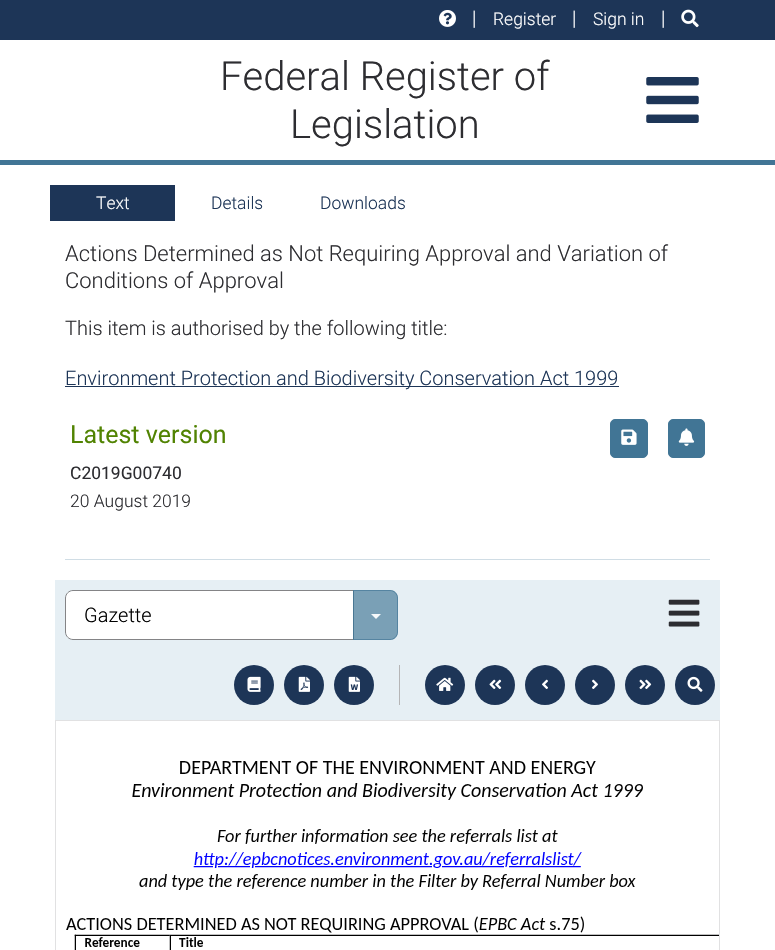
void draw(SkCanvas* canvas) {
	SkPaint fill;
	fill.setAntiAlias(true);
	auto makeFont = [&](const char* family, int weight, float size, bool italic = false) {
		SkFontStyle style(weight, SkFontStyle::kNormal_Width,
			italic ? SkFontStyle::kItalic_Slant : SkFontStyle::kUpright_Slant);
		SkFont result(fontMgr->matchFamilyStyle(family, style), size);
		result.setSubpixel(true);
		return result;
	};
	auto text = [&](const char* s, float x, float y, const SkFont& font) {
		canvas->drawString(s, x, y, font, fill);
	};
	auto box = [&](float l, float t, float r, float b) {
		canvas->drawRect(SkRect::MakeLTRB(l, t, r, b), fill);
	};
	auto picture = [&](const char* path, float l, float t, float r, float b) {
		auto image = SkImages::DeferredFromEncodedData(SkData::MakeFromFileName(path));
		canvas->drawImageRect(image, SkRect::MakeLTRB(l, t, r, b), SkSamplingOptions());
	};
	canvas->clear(0xFFFFFFFF);
	fill.setColor(0xFF417595);
	box(0, 160, 775, 165);
	fill.setColor(0xFF1D3557);
	box(0, 0, 775, 40);
	picture("image0.png", 439, 10, 456, 27);
	picture("image1.png", 681, 9, 699, 28);
	picture("image2.png", 646, 77, 699, 123);
	box(50, 185, 175, 221);
	box(65, 386, 619, 387);
	fill.setColor(0xFF417595);
	canvas->drawRoundRect(SkRect::MakeLTRB(610.5f, 419.5f, 647.5f, 457.5f), 4.5f, 4.5f, fill);
	fill.setStyle(SkPaint::kStroke_Style);
	fill.setStrokeWidth(1);
	canvas->drawRoundRect(SkRect::MakeLTRB(610.5f, 419.5f, 647.5f, 457.5f), 4.5f, 4.5f, fill);
	picture("image3.png", 621, 429, 637, 445);
	fill.setStyle(SkPaint::kFill_Style);
	canvas->drawRoundRect(SkRect::MakeLTRB(668.5f, 419.5f, 704.5f, 457.5f), 4.5f, 4.5f, fill);
	fill.setStyle(SkPaint::kStroke_Style);
	canvas->drawRoundRect(SkRect::MakeLTRB(668.5f, 419.5f, 704.5f, 457.5f), 4.5f, 4.5f, fill);
	picture("image4.png", 678, 428, 695, 446);
	fill.setStyle(SkPaint::kFill_Style);
	fill.setColor(0xFFD0DDE5);
	box(65, 559, 710, 560);
	fill.setColor(0xFFE6EFF4);
	box(55, 580, 720, 720);
	fill.setColor(0xFFFFFFFF);
	canvas->drawPath(SkPathBuilder().moveTo(72, 591).lineTo(353, 591).lineTo(353, 639).lineTo(72, 639).cubicTo(68.5f, 639, 66, 636.5f, 66, 633).lineTo(66, 597).cubicTo(66, 593.5f, 68.5f, 591, 72, 591).close().detach(), fill);
	fill.setStyle(SkPaint::kStroke_Style);
	fill.setColor(0xFF848486);
	canvas->drawPath(SkPathBuilder().moveTo(73, 590.5f).lineTo(353.5f, 590.5f).lineTo(353.5f, 639.5f).lineTo(73, 639.5f).cubicTo(69, 639.5f, 65.5f, 636, 65.5f, 632).lineTo(65.5f, 598).cubicTo(65.5f, 594, 69, 590.5f, 73, 590.5f).close().detach(), fill);
	fill.setStyle(SkPaint::kFill_Style);
	fill.setColor(0xA6417595);
	canvas->drawPath(SkPathBuilder().moveTo(353, 590).lineTo(390, 590).cubicTo(394.5f, 590, 398, 593.5f, 398, 598).lineTo(398, 632).cubicTo(398, 636.5f, 394.5f, 640, 390, 640).lineTo(353, 640).close().detach(), fill);
	fill.setStyle(SkPaint::kStroke_Style);
	canvas->drawPath(SkPathBuilder().moveTo(353.5f, 590.5f).lineTo(390, 590.5f).cubicTo(394, 590.5f, 397.5f, 594, 397.5f, 598).lineTo(397.5f, 632).cubicTo(397.5f, 636, 394, 639.5f, 390, 639.5f).lineTo(353.5f, 639.5f).close().detach(), fill);
	fill.setStyle(SkPaint::kFill_Style);
	fill.setColor(0xFFF6F9FB);
	canvas->drawPath(SkPathBuilder().moveTo(371, 614).lineTo(381, 614).lineTo(376, 619).close().detach(), fill);
	picture("image5.png", 668, 599, 700, 627);
	fill.setColor(0xFF1D3557);
	canvas->drawCircle(254, 685, 20, fill);
	picture("image6.png", 247, 676, 261, 692);
	canvas->drawCircle(304, 685, 20, fill);
	picture("image7.png", 298, 676, 310, 692);
	canvas->drawCircle(354, 685, 20, fill);
	picture("image8.png", 348, 676, 360, 692);
	fill.setColor(0xFFB5B5B6);
	box(399, 665, 400, 705);
	fill.setColor(0xFF1D3557);
	canvas->drawCircle(445, 685, 20, fill);
	picture("image9.png", 436, 677, 454, 691);
	canvas->drawCircle(495, 685, 20, fill);
	picture("image10.png", 489, 679, 502, 689);
	canvas->drawCircle(545, 685, 20, fill);
	picture("image11.png", 542, 679, 548, 689);
	canvas->drawCircle(595, 685, 20, fill);
	picture("image12.png", 592, 679, 598, 689);
	canvas->drawCircle(645, 685, 20, fill);
	picture("image13.png", 639, 679, 652, 689);
	canvas->drawCircle(695, 685, 20, fill);
	picture("image14.png", 687, 676, 703, 692);
	fill.setStyle(SkPaint::kStroke_Style);
	fill.setColor(0xFFE1E1E2);
	canvas->drawRect(SkRect::MakeLTRB(55.5f, 720.5f, 719.5f, 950.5f), fill);
	picture("image15.png", 66, 761, 719, 950);
	auto font1 = makeFont("Roboto", 300, 20);
	fill.setStyle(SkPaint::kFill_Style);
	fill.setColor(0xFFFFFFFF);
	text("|", 472, 25, font1);
	auto font2 = makeFont("Roboto", 300, 17.5f);
	text("Register", 493, 25, font2);
	text("|", 572, 25, font1);
	text("Sign in", 593, 25, font2);
	text("|", 661, 25, font1);
	auto font3 = makeFont("Roboto", 300, 40);
	fill.setColor(0xFF2D2D31);
	text("Federal Register of", 220, 90, font3);
	text("Legislation", 290, 138, font3);
	fill.setColor(0xFFFFFFFF);
	text("Text", 96, 209, font2);
	fill.setColor(0xFF1D3557);
	text("Details", 211, 209, font2);
	text("Downloads", 320, 209, font2);
	auto font4 = makeFont("Roboto", 300, 22);
	fill.setColor(0xFF2D2D31);
	text("Actions Determined as Not Requiring Approval and Variation of", 65, 261, font4);
	text("Conditions of Approval", 65, 288, font4);
	text("This item is authorised by the following title:", 65, 335, font1);
	fill.setColor(0xFF1D3557);
	text("Environment Protection and Biodiversity Conservation Act 1999", 65, 385, font1);
	auto font5 = makeFont("Roboto", 400, 25);
	fill.setColor(0xFF518302);
	text("Latest version", 70, 443, font5);
	auto font6 = makeFont("Roboto", 400, 17.5f);
	fill.setColor(0xFF2D2D31);
	text("C2019G00740", 70, 479, font6);
	text("20 August 2019", 70, 507, font2);
	fill.setColor(0xFF000000);
	text("Gazette", 84, 622, font1);
}
